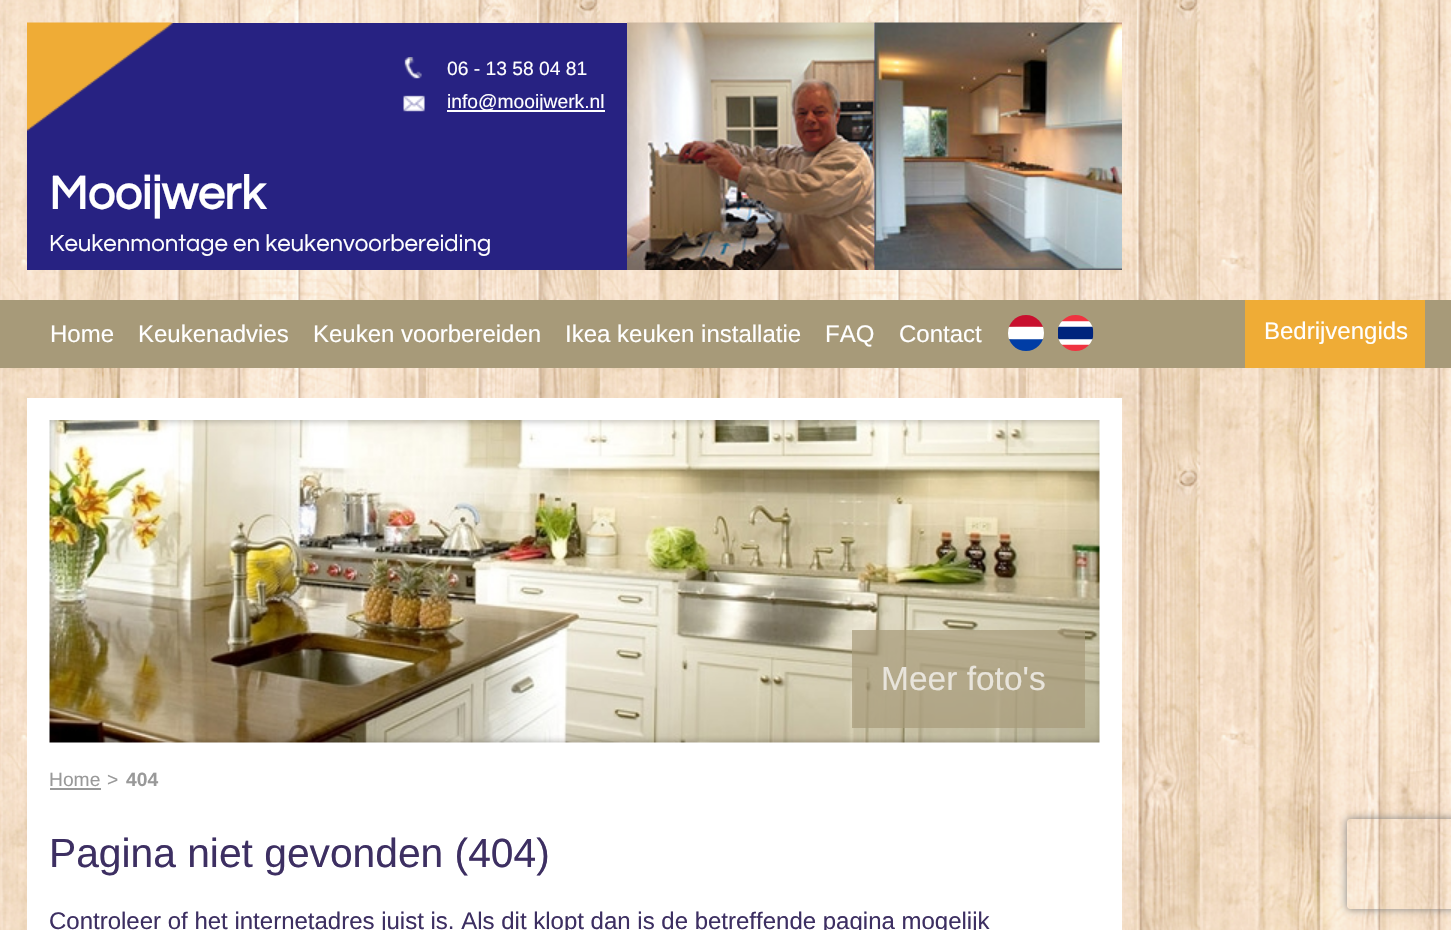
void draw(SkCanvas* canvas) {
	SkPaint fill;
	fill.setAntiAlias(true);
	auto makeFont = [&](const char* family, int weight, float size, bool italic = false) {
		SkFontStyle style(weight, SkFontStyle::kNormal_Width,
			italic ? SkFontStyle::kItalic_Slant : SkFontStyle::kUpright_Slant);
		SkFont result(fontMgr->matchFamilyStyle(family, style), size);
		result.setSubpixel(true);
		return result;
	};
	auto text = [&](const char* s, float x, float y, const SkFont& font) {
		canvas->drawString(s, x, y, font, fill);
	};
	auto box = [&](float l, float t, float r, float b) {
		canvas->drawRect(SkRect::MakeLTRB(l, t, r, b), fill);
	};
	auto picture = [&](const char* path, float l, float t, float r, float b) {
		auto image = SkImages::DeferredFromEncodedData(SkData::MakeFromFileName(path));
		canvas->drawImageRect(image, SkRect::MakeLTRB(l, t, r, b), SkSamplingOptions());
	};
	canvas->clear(0xFFFFFFFF);
	picture("image0.png", 0, 0, 1451, 930);
	fill.setColor(0xFF272282);
	box(27, 23, 875, 270);
	picture("image1.png", 27, 22, 173, 131);
	picture("image2.png", 404, 57, 422, 79);
	picture("image3.png", 403, 95, 425, 112);
	fill.setColor(0xFFFFFFFF);
	box(447, 110, 605, 112);
	picture("image5.png", 874, 22, 1122, 270);
	picture("image4.png", 627, 22, 875, 270);
	fill.setColor(0xFFA79A79);
	box(0, 300, 1451, 368);
	picture("image6.png", 1008, 315, 1044, 351);
	picture("image7.png", 1058, 315, 1094, 351);
	fill.setColor(0xFFEFAC36);
	box(1245, 300, 1425, 368);
	fill.setColor(0xFFFFFFFF);
	box(27, 398, 1122, 930);
	picture("image8.png", 49, 420, 1100, 743);
	fill.setColor(0xB3A79A79);
	box(852, 630, 1085, 728);
	fill.setColor(0xFF999999);
	box(50, 788, 101, 790);
	canvas->save();
	canvas->clipPath(SkPathBuilder(SkPathFillType::kEvenOdd).moveTo(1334, 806).lineTo(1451, 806).lineTo(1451, 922).lineTo(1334, 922).close().moveTo(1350, 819).lineTo(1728, 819).cubicTo(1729.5f, 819, 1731, 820.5f, 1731, 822).lineTo(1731, 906).cubicTo(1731, 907.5f, 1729.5f, 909, 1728, 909).lineTo(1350, 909).cubicTo(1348.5f, 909, 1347, 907.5f, 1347, 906).lineTo(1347, 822).cubicTo(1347, 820.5f, 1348.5f, 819, 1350, 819).close().detach(), true);
	fill.setColor(0xFF808080);
	fill.setMaskFilter(SkMaskFilter::MakeBlur(kNormal_SkBlurStyle, 4));
	canvas->drawRoundRect(SkRect::MakeLTRB(1347, 819, 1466, 909), 3, 3, fill);
	fill.setMaskFilter(nullptr);
	canvas->restore();
	auto font1 = makeFont("Liberation Sans", 400, 19.25f);
	fill.setColor(0xFFFFFFFF);
	text("06 - 13 58 04 81", 447, 75, font1);
	text("info@mooijwerk.nl", 447, 108, font1);
	auto font2 = makeFont("Questrial", 700, 48);
	text("Mooijwerk", 49, 209, font2);
	auto font3 = makeFont("Questrial", 400, 24);
	text("Keukenmontage en keukenvoorbereiding", 49, 251, font3);
	auto font4 = makeFont("Liberation Sans", 400, 24);
	text("Home", 50, 342, font4);
	text("Keukenadvies", 138, 342, font4);
	text("Keuken voorbereiden", 313, 342, font4);
	text("Ikea keuken installatie", 565, 342, font4);
	text("FAQ", 825, 342, font4);
	text("Contact", 899, 342, font4);
	text("Bedrijvengids", 1264, 339, font4);
	auto font5 = makeFont("Liberation Sans", 400, 33.5f);
	fill.setColor(0xFFE8E4DB);
	text("Meer foto's", 881, 690, font5);
	fill.setColor(0xFF999999);
	text("Home", 49, 786, font1);
	text(">", 107, 786, font1);
	auto font6 = makeFont("Liberation Sans", 700, 19.25f);
	text("404", 126, 786, font6);
	auto font7 = makeFont("Liberation Sans", 400, 40.75f);
	fill.setColor(0xFF3D2F62);
	text("Pagina niet gevonden (404)", 49, 867, font7);
	text("Controleer of het internetadres juist is. Als dit klopt dan is de betreffende pagina mogelijk", 49, 929, font4);
}
